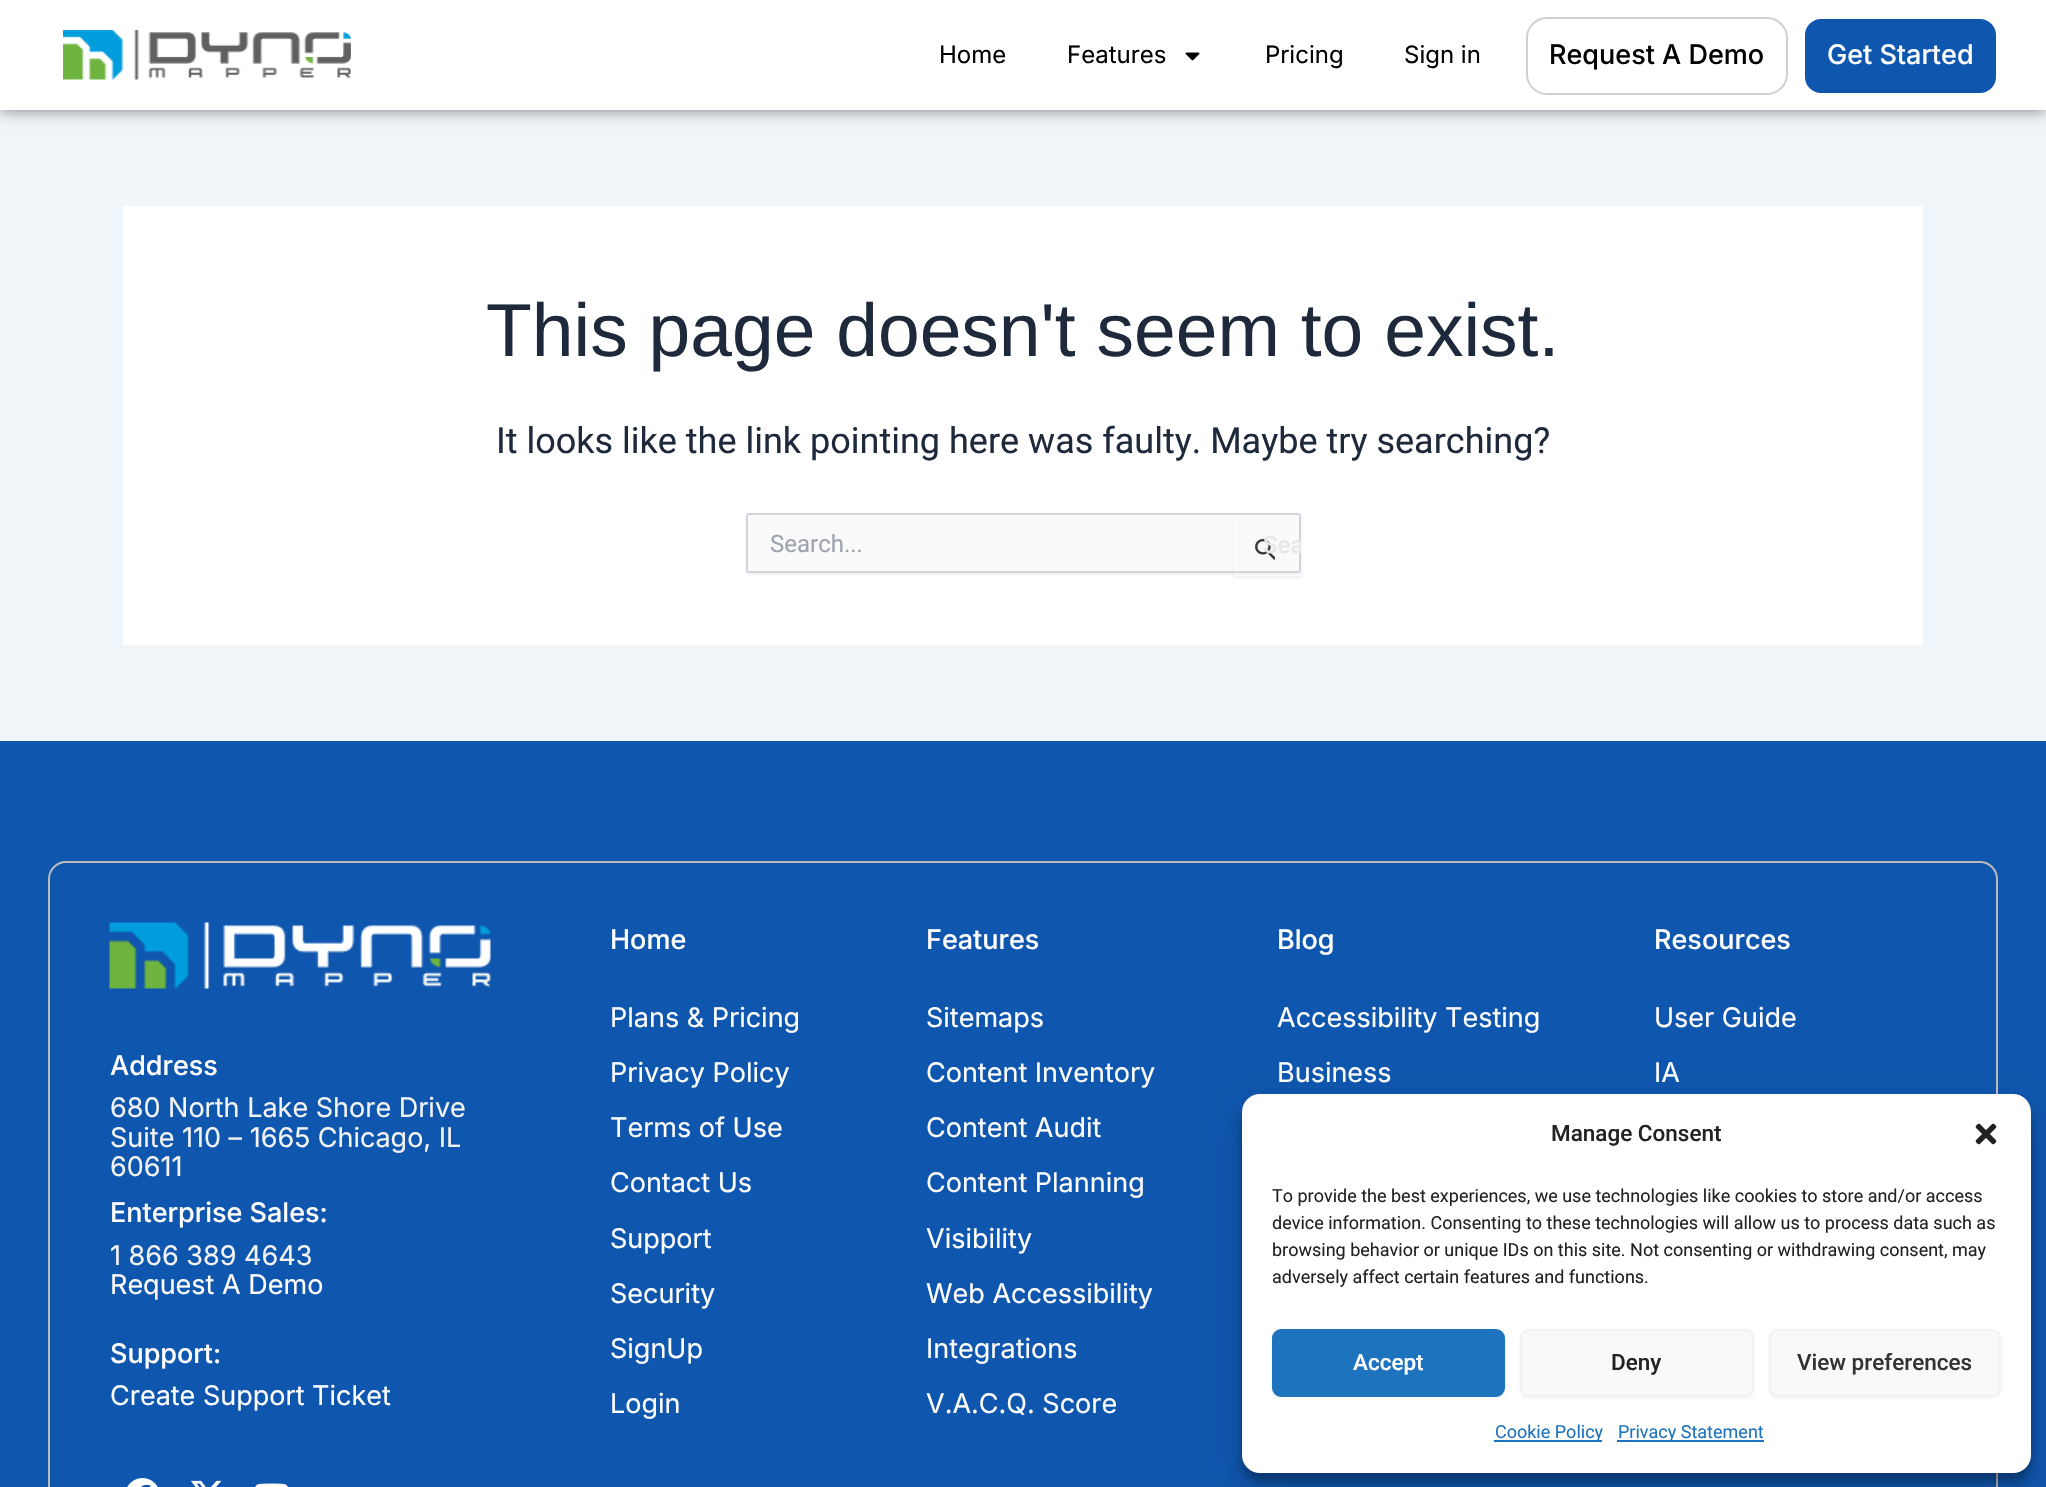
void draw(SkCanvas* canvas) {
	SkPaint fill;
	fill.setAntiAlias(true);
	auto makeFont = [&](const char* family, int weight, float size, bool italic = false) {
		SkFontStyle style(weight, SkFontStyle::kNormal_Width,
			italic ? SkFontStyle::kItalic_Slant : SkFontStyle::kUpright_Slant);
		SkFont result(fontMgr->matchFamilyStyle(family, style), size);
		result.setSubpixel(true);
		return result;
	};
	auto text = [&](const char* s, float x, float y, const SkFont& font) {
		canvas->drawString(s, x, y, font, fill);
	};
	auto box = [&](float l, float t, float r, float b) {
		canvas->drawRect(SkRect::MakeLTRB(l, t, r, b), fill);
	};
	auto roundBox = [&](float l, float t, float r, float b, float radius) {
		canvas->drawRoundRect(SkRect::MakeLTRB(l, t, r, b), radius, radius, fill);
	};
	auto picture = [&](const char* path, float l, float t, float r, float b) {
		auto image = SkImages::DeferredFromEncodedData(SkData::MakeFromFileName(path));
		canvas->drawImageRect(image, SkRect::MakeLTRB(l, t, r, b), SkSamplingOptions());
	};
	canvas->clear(0xFFF0F5FA);
	fill.setColor(0x80000000);
	fill.setMaskFilter(SkMaskFilter::MakeBlur(kNormal_SkBlurStyle, 7.5f));
	canvas->drawRect(SkRect::MakeLTRB(0, 0, 2046, 110), fill);
	fill.setMaskFilter(nullptr);
	fill.setColor(0xFFFFFFFF);
	box(0, 0, 2046, 110);
	picture("image0.png", 63, 30, 351, 80);
	picture("image1.png", 1185, 52, 1200, 61);
	fill.setStyle(SkPaint::kStroke_Style);
	fill.setStrokeWidth(2);
	fill.setColor(0xFFD0D0D0);
	canvas->drawRoundRect(SkRect::MakeLTRB(1527, 18, 1787, 94), 20, 20, fill);
	fill.setStyle(SkPaint::kFill_Style);
	fill.setColor(0xFF0F56AE);
	canvas->drawRoundRect(SkRect::MakeLTRB(1804, 18, 1997, 94), 17, 17, fill);
	fill.setStyle(SkPaint::kStroke_Style);
	fill.setColor(0xFFFFFFFF);
	canvas->drawRoundRect(SkRect::MakeLTRB(1804, 18, 1997, 94), 17, 17, fill);
	fill.setStyle(SkPaint::kFill_Style);
	box(123, 206, 1923, 645);
	fill.setColor(0x0D000000);
	fill.setMaskFilter(SkMaskFilter::MakeBlur(kNormal_SkBlurStyle, 1.5f));
	canvas->drawRoundRect(SkRect::MakeLTRB(746, 515, 1301, 575), 3, 3, fill);
	fill.setMaskFilter(nullptr);
	fill.setColor(0xFFFAFAFA);
	canvas->drawRoundRect(SkRect::MakeLTRB(747, 514, 1300, 572), 2, 2, fill);
	fill.setStyle(SkPaint::kStroke_Style);
	fill.setColor(0xFFD1D5DB);
	canvas->drawRoundRect(SkRect::MakeLTRB(747, 514, 1300, 572), 2, 2, fill);
	picture("image2.png", 1255, 539, 1275, 560);
	canvas->save();
	canvas->clipPath(SkPathBuilder(SkPathFillType::kEvenOdd).moveTo(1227, 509).lineTo(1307, 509).lineTo(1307, 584).lineTo(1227, 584).close().moveTo(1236, 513).lineTo(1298, 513).cubicTo(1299.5f, 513, 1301, 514.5f, 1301, 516).lineTo(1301, 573).cubicTo(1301, 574.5f, 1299.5f, 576, 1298, 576).lineTo(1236, 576).cubicTo(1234.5f, 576, 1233, 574.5f, 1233, 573).lineTo(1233, 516).cubicTo(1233, 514.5f, 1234.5f, 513, 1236, 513).close().detach(), true);
	fill.setStyle(SkPaint::kFill_Style);
	fill.setColor(0x0D000000);
	fill.setMaskFilter(SkMaskFilter::MakeBlur(kNormal_SkBlurStyle, 1.5f));
	canvas->drawRoundRect(SkRect::MakeLTRB(1233, 515, 1301, 578), 3, 3, fill);
	fill.setMaskFilter(nullptr);
	canvas->restore();
	fill.setColor(0xFF0F56AE);
	box(0, 741, 2046, 1487);
	fill.setStyle(SkPaint::kStroke_Style);
	fill.setColor(0xFFBBBBBB);
	canvas->drawRoundRect(SkRect::MakeLTRB(49, 862, 1997, 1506), 17, 17, fill);
	picture("image3.png", 109, 922, 491, 989);
	picture("image4.png", 127, 1478, 158, 1487);
	picture("image5.png", 191, 1480, 222, 1487);
	picture("image6.png", 255, 1483, 288, 1487);
	fill.setStyle(SkPaint::kFill_Style);
	fill.setColor(0x3B000000);
	fill.setMaskFilter(SkMaskFilter::MakeBlur(kNormal_SkBlurStyle, 4.5f));
	canvas->drawRoundRect(SkRect::MakeLTRB(1242, 1103, 2031, 1482), 18, 18, fill);
	fill.setMaskFilter(nullptr);
	fill.setColor(0x30000000);
	fill.setMaskFilter(SkMaskFilter::MakeBlur(kNormal_SkBlurStyle, 15));
	canvas->drawRoundRect(SkRect::MakeLTRB(1242, 1109, 2031, 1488), 18, 18, fill);
	fill.setMaskFilter(nullptr);
	fill.setColor(0xFFFFFFFF);
	roundBox(1242, 1094, 2031, 1473, 18);
	picture("image7.png", 1975, 1123, 1997, 1145);
	fill.setColor(0x0D000000);
	fill.setMaskFilter(SkMaskFilter::MakeBlur(kNormal_SkBlurStyle, 1.5f));
	canvas->drawRoundRect(SkRect::MakeLTRB(1272, 1331, 1505, 1398), 9, 9, fill);
	fill.setMaskFilter(nullptr);
	fill.setColor(0xFF1E73BE);
	canvas->drawRoundRect(SkRect::MakeLTRB(1273, 1330, 1504, 1396), 8, 8, fill);
	fill.setStyle(SkPaint::kStroke_Style);
	canvas->drawRoundRect(SkRect::MakeLTRB(1273, 1330, 1504, 1396), 8, 8, fill);
	fill.setStyle(SkPaint::kFill_Style);
	fill.setColor(0x0D000000);
	fill.setMaskFilter(SkMaskFilter::MakeBlur(kNormal_SkBlurStyle, 1.5f));
	canvas->drawRoundRect(SkRect::MakeLTRB(1520, 1331, 1754, 1398), 9, 9, fill);
	fill.setMaskFilter(nullptr);
	fill.setColor(0xFFF9F9F9);
	canvas->drawRoundRect(SkRect::MakeLTRB(1521, 1330, 1753, 1396), 8, 8, fill);
	fill.setStyle(SkPaint::kStroke_Style);
	fill.setColor(0xFFF2F2F2);
	canvas->drawRoundRect(SkRect::MakeLTRB(1521, 1330, 1753, 1396), 8, 8, fill);
	fill.setStyle(SkPaint::kFill_Style);
	fill.setColor(0x0D000000);
	fill.setMaskFilter(SkMaskFilter::MakeBlur(kNormal_SkBlurStyle, 1.5f));
	canvas->drawRoundRect(SkRect::MakeLTRB(1769, 1331, 2001, 1398), 9, 9, fill);
	fill.setMaskFilter(nullptr);
	fill.setColor(0xFFF9F9F9);
	canvas->drawRoundRect(SkRect::MakeLTRB(1770, 1330, 2000, 1396), 8, 8, fill);
	fill.setStyle(SkPaint::kStroke_Style);
	fill.setColor(0xFFF2F2F2);
	canvas->drawRoundRect(SkRect::MakeLTRB(1770, 1330, 2000, 1396), 8, 8, fill);
	fill.setStyle(SkPaint::kFill_Style);
	fill.setColor(0xFF1E73BE);
	box(1494, 1440, 1602, 1442);
	box(1617, 1440, 1764, 1442);
	auto font1 = makeFont("Inter", 400, 24);
	fill.setColor(0xFF000000);
	text("Home", 939, 63, font1);
	text("Features", 1067, 63, font1);
	text("Pricing", 1265, 63, font1);
	text("Sign in", 1404, 63, font1);
	auto font2 = makeFont("Inter", 500, 27);
	text("Request A Demo", 1549, 64, font2);
	fill.setColor(0xFFFFFFFF);
	text("Get Started", 1827, 64, font2);
	auto font3 = makeFont("Liberation Sans", 400, 75);
	fill.setColor(0xFF1E293B);
	text("This page doesn't seem to exist.", 486, 356, font3);
	auto font4 = makeFont("Roboto", 400, 36);
	text("It looks like the link pointing here was faulty. Maybe try searching?", 496, 453, font4);
	auto font5 = makeFont("Roboto", 400, 24);
	fill.setColor(0xFF9CA3AF);
	text("Search...", 770, 552, font5);
	canvas->save();
	canvas->clipPath(SkPathBuilder().moveTo(1236, 513).lineTo(1298, 513).cubicTo(1299.5f, 513, 1301, 514.5f, 1301, 516).lineTo(1301, 573).cubicTo(1301, 574.5f, 1299.5f, 576, 1298, 576).lineTo(1236, 576).cubicTo(1234.5f, 576, 1233, 574.5f, 1233, 573).lineTo(1233, 516).cubicTo(1233, 514.5f, 1234.5f, 513, 1236, 513).close().detach(), true);
	auto font6 = makeFont("Roboto", 500, 24);
	fill.setColor(0xFFE6E7E7);
	text("Sea", 1263, 553, font6);
	canvas->restore();
	fill.setColor(0xFFFFFFFF);
	text("Home", 610, 949, font2);
	auto font7 = makeFont("Inter", 400, 27);
	text("Plans & Pricing", 610, 1027, font7);
	text("Privacy Policy", 610, 1082, font7);
	text("Terms of Use", 610, 1137, font7);
	text("Contact Us", 610, 1192, font7);
	text("Support", 610, 1248, font7);
	text("Security", 610, 1303, font7);
	text("SignUp", 610, 1358, font7);
	text("Login", 610, 1413, font7);
	text("Features", 926, 949, font2);
	text("Sitemaps", 926, 1027, font7);
	text("Content Inventory", 926, 1082, font7);
	text("Content Audit", 926, 1137, font7);
	text("Content Planning", 926, 1192, font7);
	text("Visibility", 926, 1248, font7);
	text("Web Accessibility", 926, 1303, font7);
	text("Integrations", 926, 1358, font7);
	text("V.A.C.Q. Score", 926, 1413, font7);
	text("Blog", 1277, 949, font2);
	text("Accessibility Testing", 1277, 1027, font7);
	text("Business", 1277, 1082, font7);
	text("Resources", 1654, 949, font2);
	text("User Guide", 1654, 1027, font7);
	text("IA", 1654, 1082, font7);
	text("Address", 110, 1075, font2);
	fill.setColor(0xFFF3F3F3);
	text("680 North Lake Shore Drive", 110, 1117, font7);
	text("Suite 110 – 1665 Chicago, IL", 110, 1147, font7);
	text("60611", 110, 1176, font7);
	fill.setColor(0xFFFFFFFF);
	text("Enterprise Sales:", 110, 1222, font2);
	fill.setColor(0xFFF3F3F3);
	text("1 866 389 4643", 110, 1265, font7);
	fill.setColor(0xFFFFFFFF);
	text("Request A Demo", 110, 1294, font7);
	text("Support:", 110, 1363, font2);
	text("Create Support Ticket", 110, 1405, font7);
	auto font8 = makeFont("Roboto", 500, 22.5f);
	fill.setColor(0xFF222222);
	text("Manage Consent", 1551, 1141, font8);
	auto font9 = makeFont("Roboto", 400, 18);
	text("To provide the best experiences, we use technologies like cookies to store and/or access", 1272, 1202, font9);
	text("device information. Consenting to these technologies will allow us to process data such as", 1272, 1229, font9);
	text("browsing behavior or unique IDs on this site. Not consenting or withdrawing consent, may", 1272, 1256, font9);
	text("adversely affect certain features and functions.", 1272, 1283, font9);
	fill.setColor(0xFFFFFFFF);
	text("Accept", 1353, 1370, font8);
	fill.setColor(0xFF222222);
	text("Deny", 1611, 1370, font8);
	fill.setColor(0xFF333333);
	text("View preferences", 1797, 1370, font8);
	fill.setColor(0xFF1E73BE);
	text("Cookie Policy", 1495, 1438, font9);
	text("Privacy Statement", 1618, 1438, font9);
}
